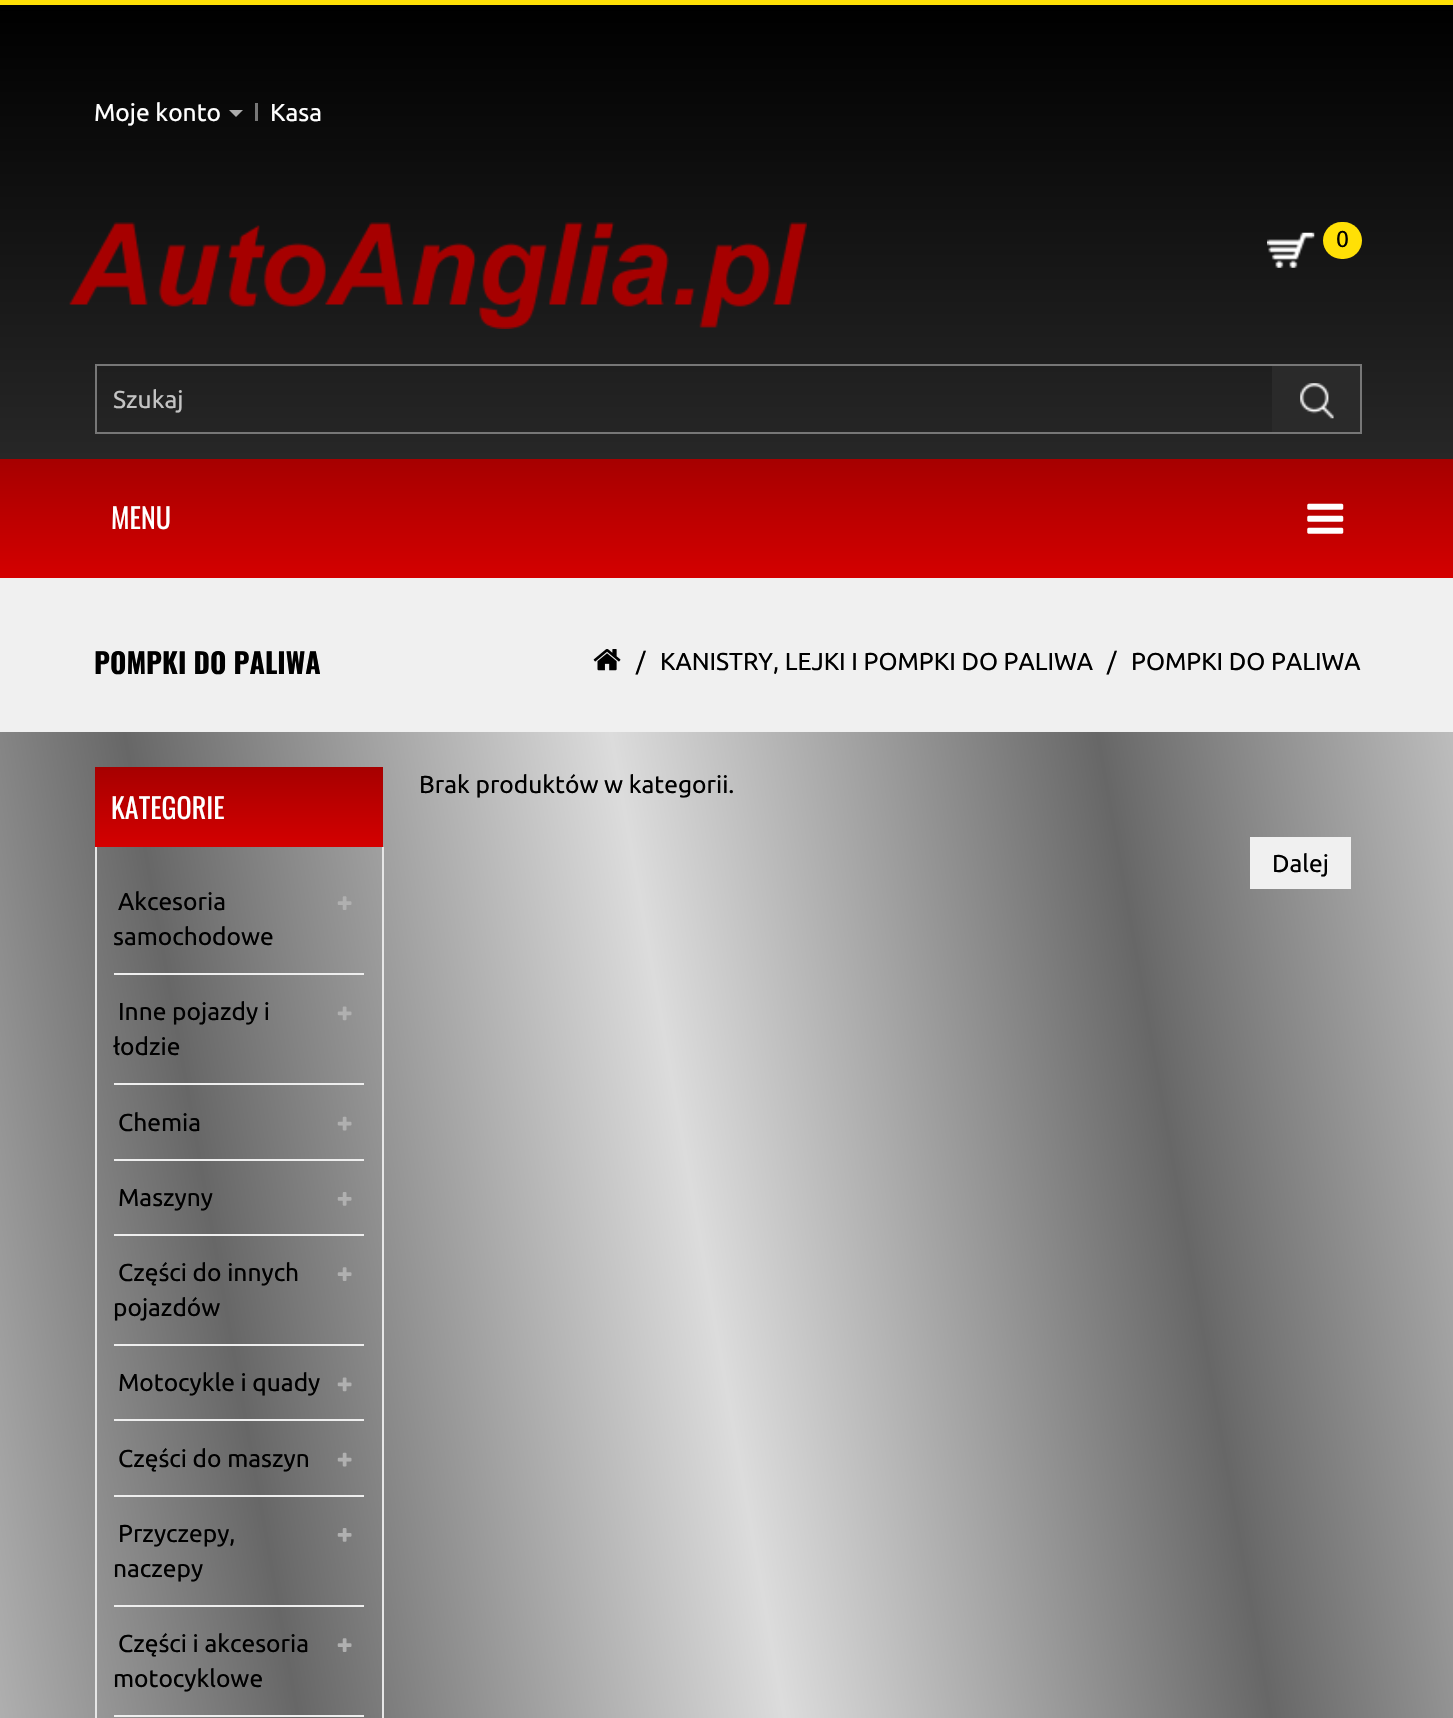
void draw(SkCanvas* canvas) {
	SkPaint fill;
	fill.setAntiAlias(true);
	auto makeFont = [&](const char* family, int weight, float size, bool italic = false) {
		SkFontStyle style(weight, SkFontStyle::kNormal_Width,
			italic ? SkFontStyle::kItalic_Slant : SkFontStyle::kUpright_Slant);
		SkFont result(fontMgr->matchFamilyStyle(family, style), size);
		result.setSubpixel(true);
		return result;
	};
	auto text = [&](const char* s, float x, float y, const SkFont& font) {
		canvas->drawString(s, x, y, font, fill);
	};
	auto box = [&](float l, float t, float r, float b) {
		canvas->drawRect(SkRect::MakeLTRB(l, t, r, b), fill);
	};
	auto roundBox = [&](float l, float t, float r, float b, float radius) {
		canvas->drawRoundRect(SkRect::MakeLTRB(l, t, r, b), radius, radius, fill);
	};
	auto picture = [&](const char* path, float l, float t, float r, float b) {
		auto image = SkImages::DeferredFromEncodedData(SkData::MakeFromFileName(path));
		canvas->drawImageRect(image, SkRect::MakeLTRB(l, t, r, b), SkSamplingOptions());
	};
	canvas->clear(0xFFFFFFFF);
	{
		const SkColor colors[] = {0xFFDCDCDC, 0xFF676767, 0xFFDCDCDC, 0xFF676767, 0xFFDCDCDC};
		const float stops[] = {0, 0.25f, 0.5f, 0.75f, 1};
		const SkPoint ends[] = {{-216, 1560}, {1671, 1227}};
		fill.setShader(SkGradientShader::MakeLinear(ends, colors, stops, 5, SkTileMode::kClamp));
		fill.setAlpha(255);
	}
	box(0, 732, 1453, 1718);
	{
		const SkColor colors[] = {0xFF272727, 0xFF000000};
		const float stops[] = {0, 1};
		const SkPoint ends[] = {{727, 459}, {727, 5.2f}};
		fill.setShader(SkGradientShader::MakeLinear(ends, colors, stops, 2, SkTileMode::kClamp));
		fill.setAlpha(255);
	}
	box(0, 5, 1453, 459);
	fill.setShader(nullptr);
	fill.setColor(0xFFFFE006);
	box(0, 0, 1453, 5);
	fill.setColor(0xFF777777);
	box(255, 103, 258, 121);
	fill.setColor(0xFFACACAC);
	canvas->drawPath(SkPathBuilder().moveTo(229, 110).lineTo(243, 110).lineTo(236, 117).close().detach(), fill);
	picture("image0.png", 69, 222, 807, 329);
	picture("image1.png", 1267, 232, 1315, 268);
	fill.setColor(0xFFFFE006);
	roundBox(1323, 222, 1362, 259, 18.5f);
	fill.setStyle(SkPaint::kStroke_Style);
	fill.setStrokeWidth(2);
	fill.setColor(0xFF777777);
	canvas->drawRect(SkRect::MakeLTRB(96, 365, 1361, 433), fill);
	fill.setStyle(SkPaint::kFill_Style);
	fill.setColor(0xFF2A2A2A);
	box(1272, 366, 1360, 432);
	picture("image2.png", 1300, 383, 1334, 419);
	{
		const SkColor colors[] = {0xFFD40000, 0xFFA60000};
		const float stops[] = {0, 1};
		const SkPoint ends[] = {{727, 578}, {727, 459}};
		fill.setShader(SkGradientShader::MakeLinear(ends, colors, stops, 2, SkTileMode::kClamp));
		fill.setAlpha(255);
	}
	box(0, 459, 1453, 578);
	picture("image3.png", 1307, 503, 1344, 534);
	fill.setShader(nullptr);
	fill.setColor(0xFFF0F0F0);
	box(0, 578, 1453, 732);
	picture("image4.png", 593, 649, 621, 671);
	{
		const SkColor colors[] = {0xFFD40000, 0xFFA60000};
		const float stops[] = {0, 1};
		const SkPoint ends[] = {{239, 847}, {239, 767}};
		fill.setShader(SkGradientShader::MakeLinear(ends, colors, stops, 2, SkTileMode::kClamp));
		fill.setAlpha(255);
	}
	box(95, 767, 383, 847);
	fill.setShader(nullptr);
	fill.setColor(0xFFE6E6E6);
	box(382, 847, 384, 1718);
	box(95, 847, 97, 1718);
	fill.setColor(0xFFEEEEEE);
	box(114, 973, 364, 975);
	picture("image5.png", 337, 896, 352, 910);
	box(114, 1083, 364, 1085);
	picture("image6.png", 337, 1006, 352, 1021);
	box(114, 1159, 364, 1161);
	picture("image7.png", 337, 1116, 352, 1131);
	box(114, 1234, 364, 1236);
	picture("image8.png", 337, 1192, 352, 1206);
	box(114, 1344, 364, 1346);
	picture("image9.png", 337, 1267, 352, 1281);
	box(114, 1419, 364, 1421);
	picture("image10.png", 337, 1377, 352, 1392);
	box(114, 1495, 364, 1497);
	picture("image11.png", 337, 1452, 352, 1467);
	box(114, 1605, 364, 1607);
	picture("image12.png", 337, 1528, 352, 1542);
	box(114, 1715, 364, 1717);
	picture("image13.png", 337, 1638, 352, 1652);
	fill.setColor(0xFFF0F0F0);
	box(1250, 837, 1351, 889);
	auto font1 = makeFont("Ubuntu", 400, 24.5f);
	fill.setColor(0xFFFFFFFF);
	text("Moje konto", 94, 121, font1);
	text("Kasa", 270, 121, font1);
	auto font2 = makeFont("Ubuntu", 400, 23);
	fill.setColor(0xFF000000);
	text("0", 1336, 247, font2);
	fill.setColor(0xFFC3C3C3);
	text("Szukaj", 113, 408, font1);
	auto font3 = makeFont("Oswald", 400, 28);
	fill.setColor(0xFFFFFFFF);
	text("MENU", 111, 529, font3);
	auto font4 = makeFont("Oswald", 700, 28);
	fill.setColor(0xFF000000);
	text("POMPKI DO PALIWA", 94, 674, font4);
	text("/", 636, 670, font1);
	text("KANISTRY, LEJKI I POMPKI DO PALIWA", 660, 670, font1);
	text("/", 1107, 670, font1);
	text("POMPKI DO PALIWA", 1131, 670, font1);
	fill.setColor(0xFFFFFFFF);
	text("KATEGORIE", 111, 819, font3);
	fill.setColor(0xFF000000);
	text("Akcesoria", 118, 910, font1);
	text("samochodowe", 113, 945, font1);
	text("Inne pojazdy i", 118, 1020, font1);
	text("łodzie", 113, 1055, font1);
	text("Chemia", 118, 1131, font1);
	text("Maszyny", 118, 1206, font1);
	text("Części do innych", 118, 1281, font1);
	text("pojazdów", 113, 1316, font1);
	text("Motocykle i quady", 118, 1391, font1);
	text("Części do maszyn", 118, 1467, font1);
	text("Przyczepy,", 118, 1542, font1);
	text("naczepy", 113, 1577, font1);
	text("Części i akcesoria", 118, 1652, font1);
	text("motocyklowe", 113, 1687, font1);
	text("Brak produktów w kategorii.", 419, 793, font1);
	text("Dalej", 1272, 872, font1);
}
